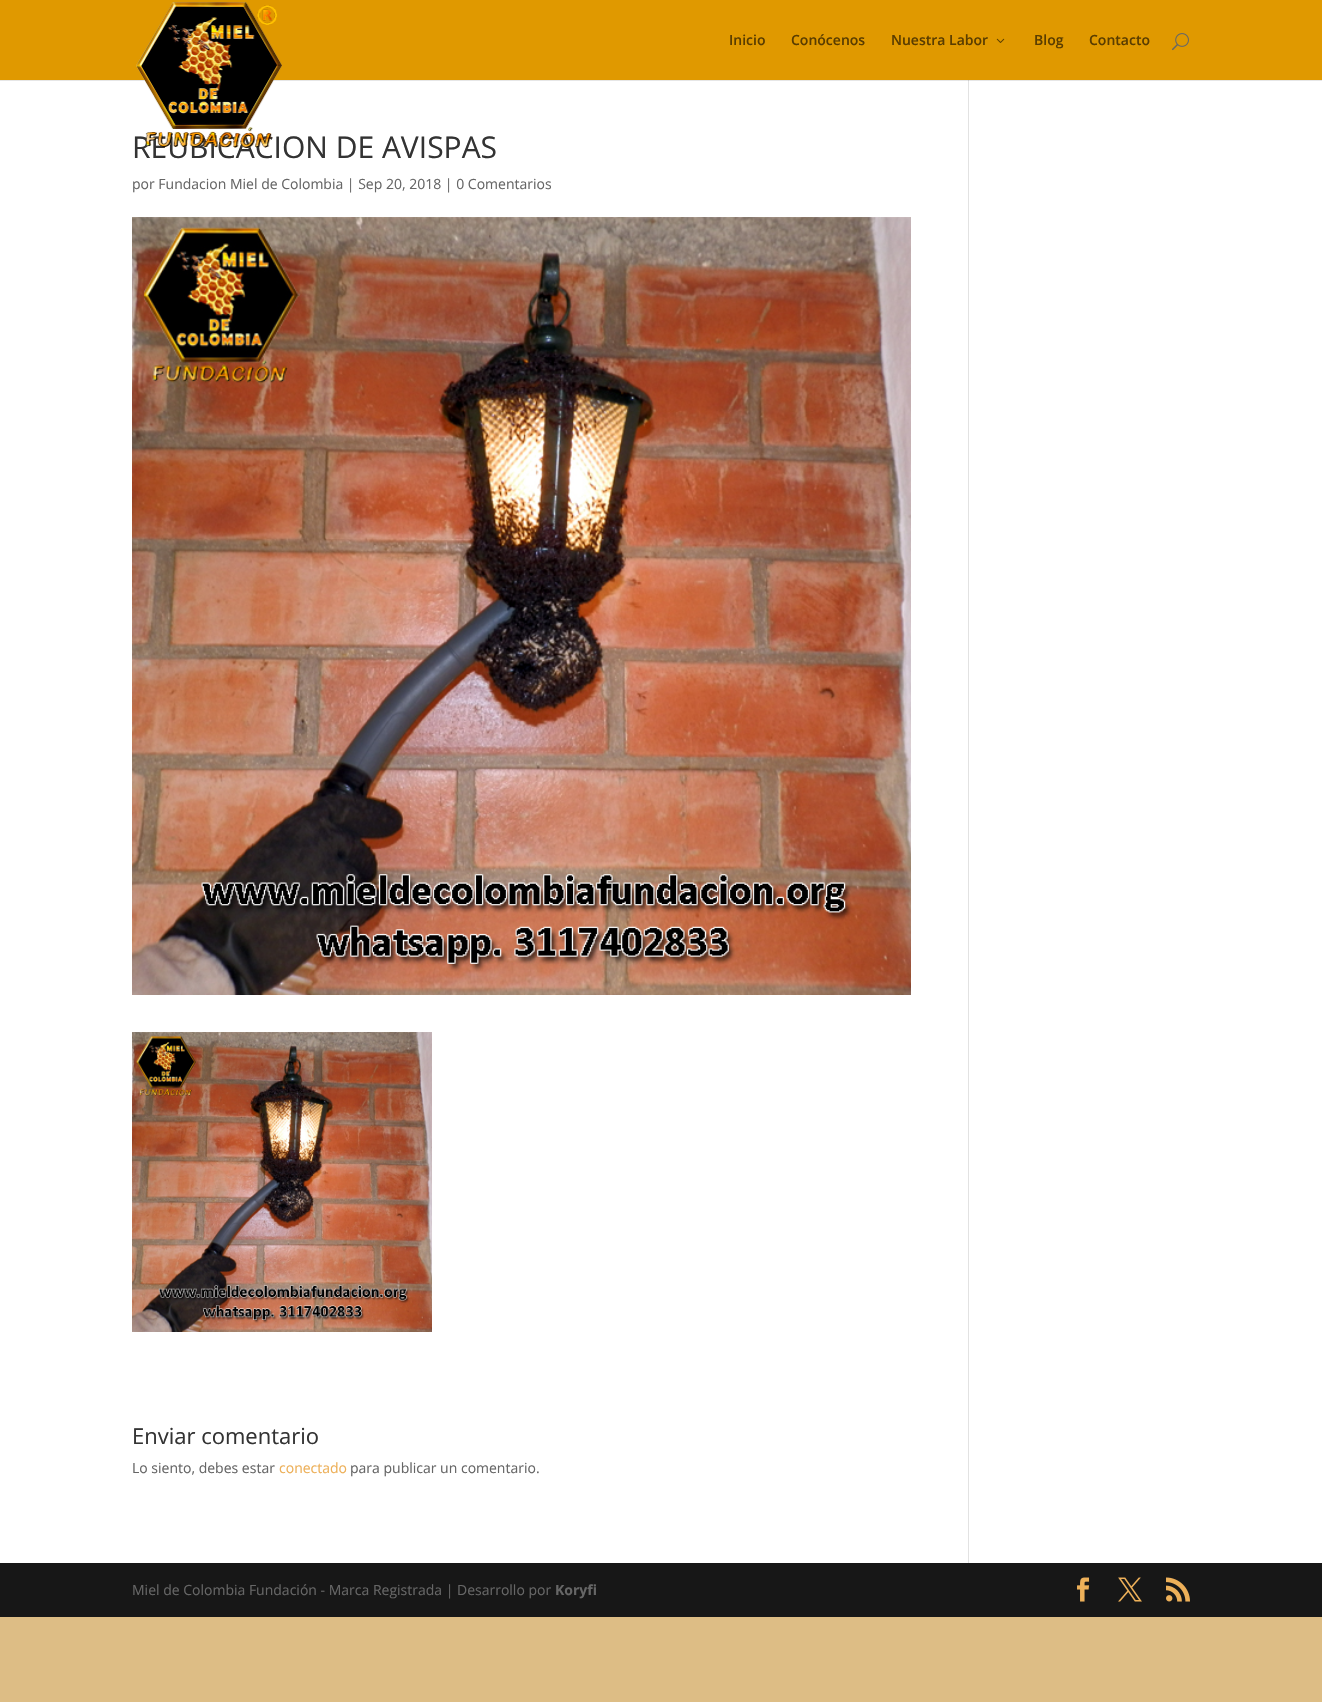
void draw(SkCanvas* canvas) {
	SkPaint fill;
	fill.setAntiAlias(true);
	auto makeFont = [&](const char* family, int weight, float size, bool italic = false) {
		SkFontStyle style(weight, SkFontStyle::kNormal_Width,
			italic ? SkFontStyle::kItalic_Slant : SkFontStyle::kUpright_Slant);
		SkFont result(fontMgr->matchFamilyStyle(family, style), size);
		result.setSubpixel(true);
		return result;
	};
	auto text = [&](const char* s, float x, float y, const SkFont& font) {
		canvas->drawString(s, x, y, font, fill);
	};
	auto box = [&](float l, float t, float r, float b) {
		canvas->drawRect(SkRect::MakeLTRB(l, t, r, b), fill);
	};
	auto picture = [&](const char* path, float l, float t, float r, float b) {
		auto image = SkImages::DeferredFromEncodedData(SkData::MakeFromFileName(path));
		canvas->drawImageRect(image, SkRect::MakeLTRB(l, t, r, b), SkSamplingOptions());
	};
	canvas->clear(0xFFDDBD85);
	fill.setColor(0xFFFFFFFF);
	box(0, 81, 1322, 1563);
	fill.setColor(0xFFE6E6E6);
	box(0, 80, 1322, 81);
	fill.setColor(0xFFE2E2E2);
	box(968, 74, 969, 1563);
	fill.setColor(0xFFE09900);
	box(0, 0, 1322, 80);
	picture("image1.png", 996, 38, 1005, 43);
	picture("image2.png", 1172, 33, 1189, 51);
	picture("image3.png", 132, 217, 911, 995);
	picture("image4.png", 132, 1032, 432, 1332);
	fill.setColor(0xFFCBCBCB);
	box(968, 80, 969, 81);
	fill.setColor(0xFF171717);
	box(0, 1563, 1322, 1617);
	picture("image5.png", 1077, 1577, 1090, 1602);
	picture("image6.png", 1118, 1577, 1142, 1602);
	picture("image7.png", 1166, 1577, 1190, 1602);
	auto font1 = makeFont("Open Sans", 600, 14);
	fill.setColor(0xFF5A3D00);
	text("Inicio", 729, 45, font1);
	text("Conócenos", 791, 45, font1);
	text("Nuestra Labor", 891, 45, font1);
	text("Blog", 1034, 45, font1);
	text("Contacto", 1089, 45, font1);
	auto font2 = makeFont("Open Sans", 400, 30);
	fill.setColor(0xFF333333);
	text("REUBICACION DE AVISPAS", 132, 158, font2);
	picture("image0.png", 136, 2, 282, 149);
	auto font3 = makeFont("Open Sans", 400, 14);
	fill.setColor(0xFF666666);
	text("por Fundacion Miel de Colombia | Sep 20, 2018 | 0 Comentarios", 132, 189, font3);
	auto font4 = makeFont("Open Sans", 400, 22);
	fill.setColor(0xFF333333);
	text("Enviar comentario", 132, 1444, font4);
	fill.setColor(0xFF666666);
	text("Lo siento, debes estar", 132, 1473, font3);
	fill.setColor(0xFFEDB059);
	text("conectado", 279, 1473, font3);
	fill.setColor(0xFF666666);
	text("para publicar un comentario.", 350, 1473, font3);
	text("Miel de Colombia Fundación - Marca Registrada | Desarrollo por", 132, 1595, font3);
	auto font5 = makeFont("Open Sans", 700, 14);
	text("Koryfi", 555, 1595, font5);
}
